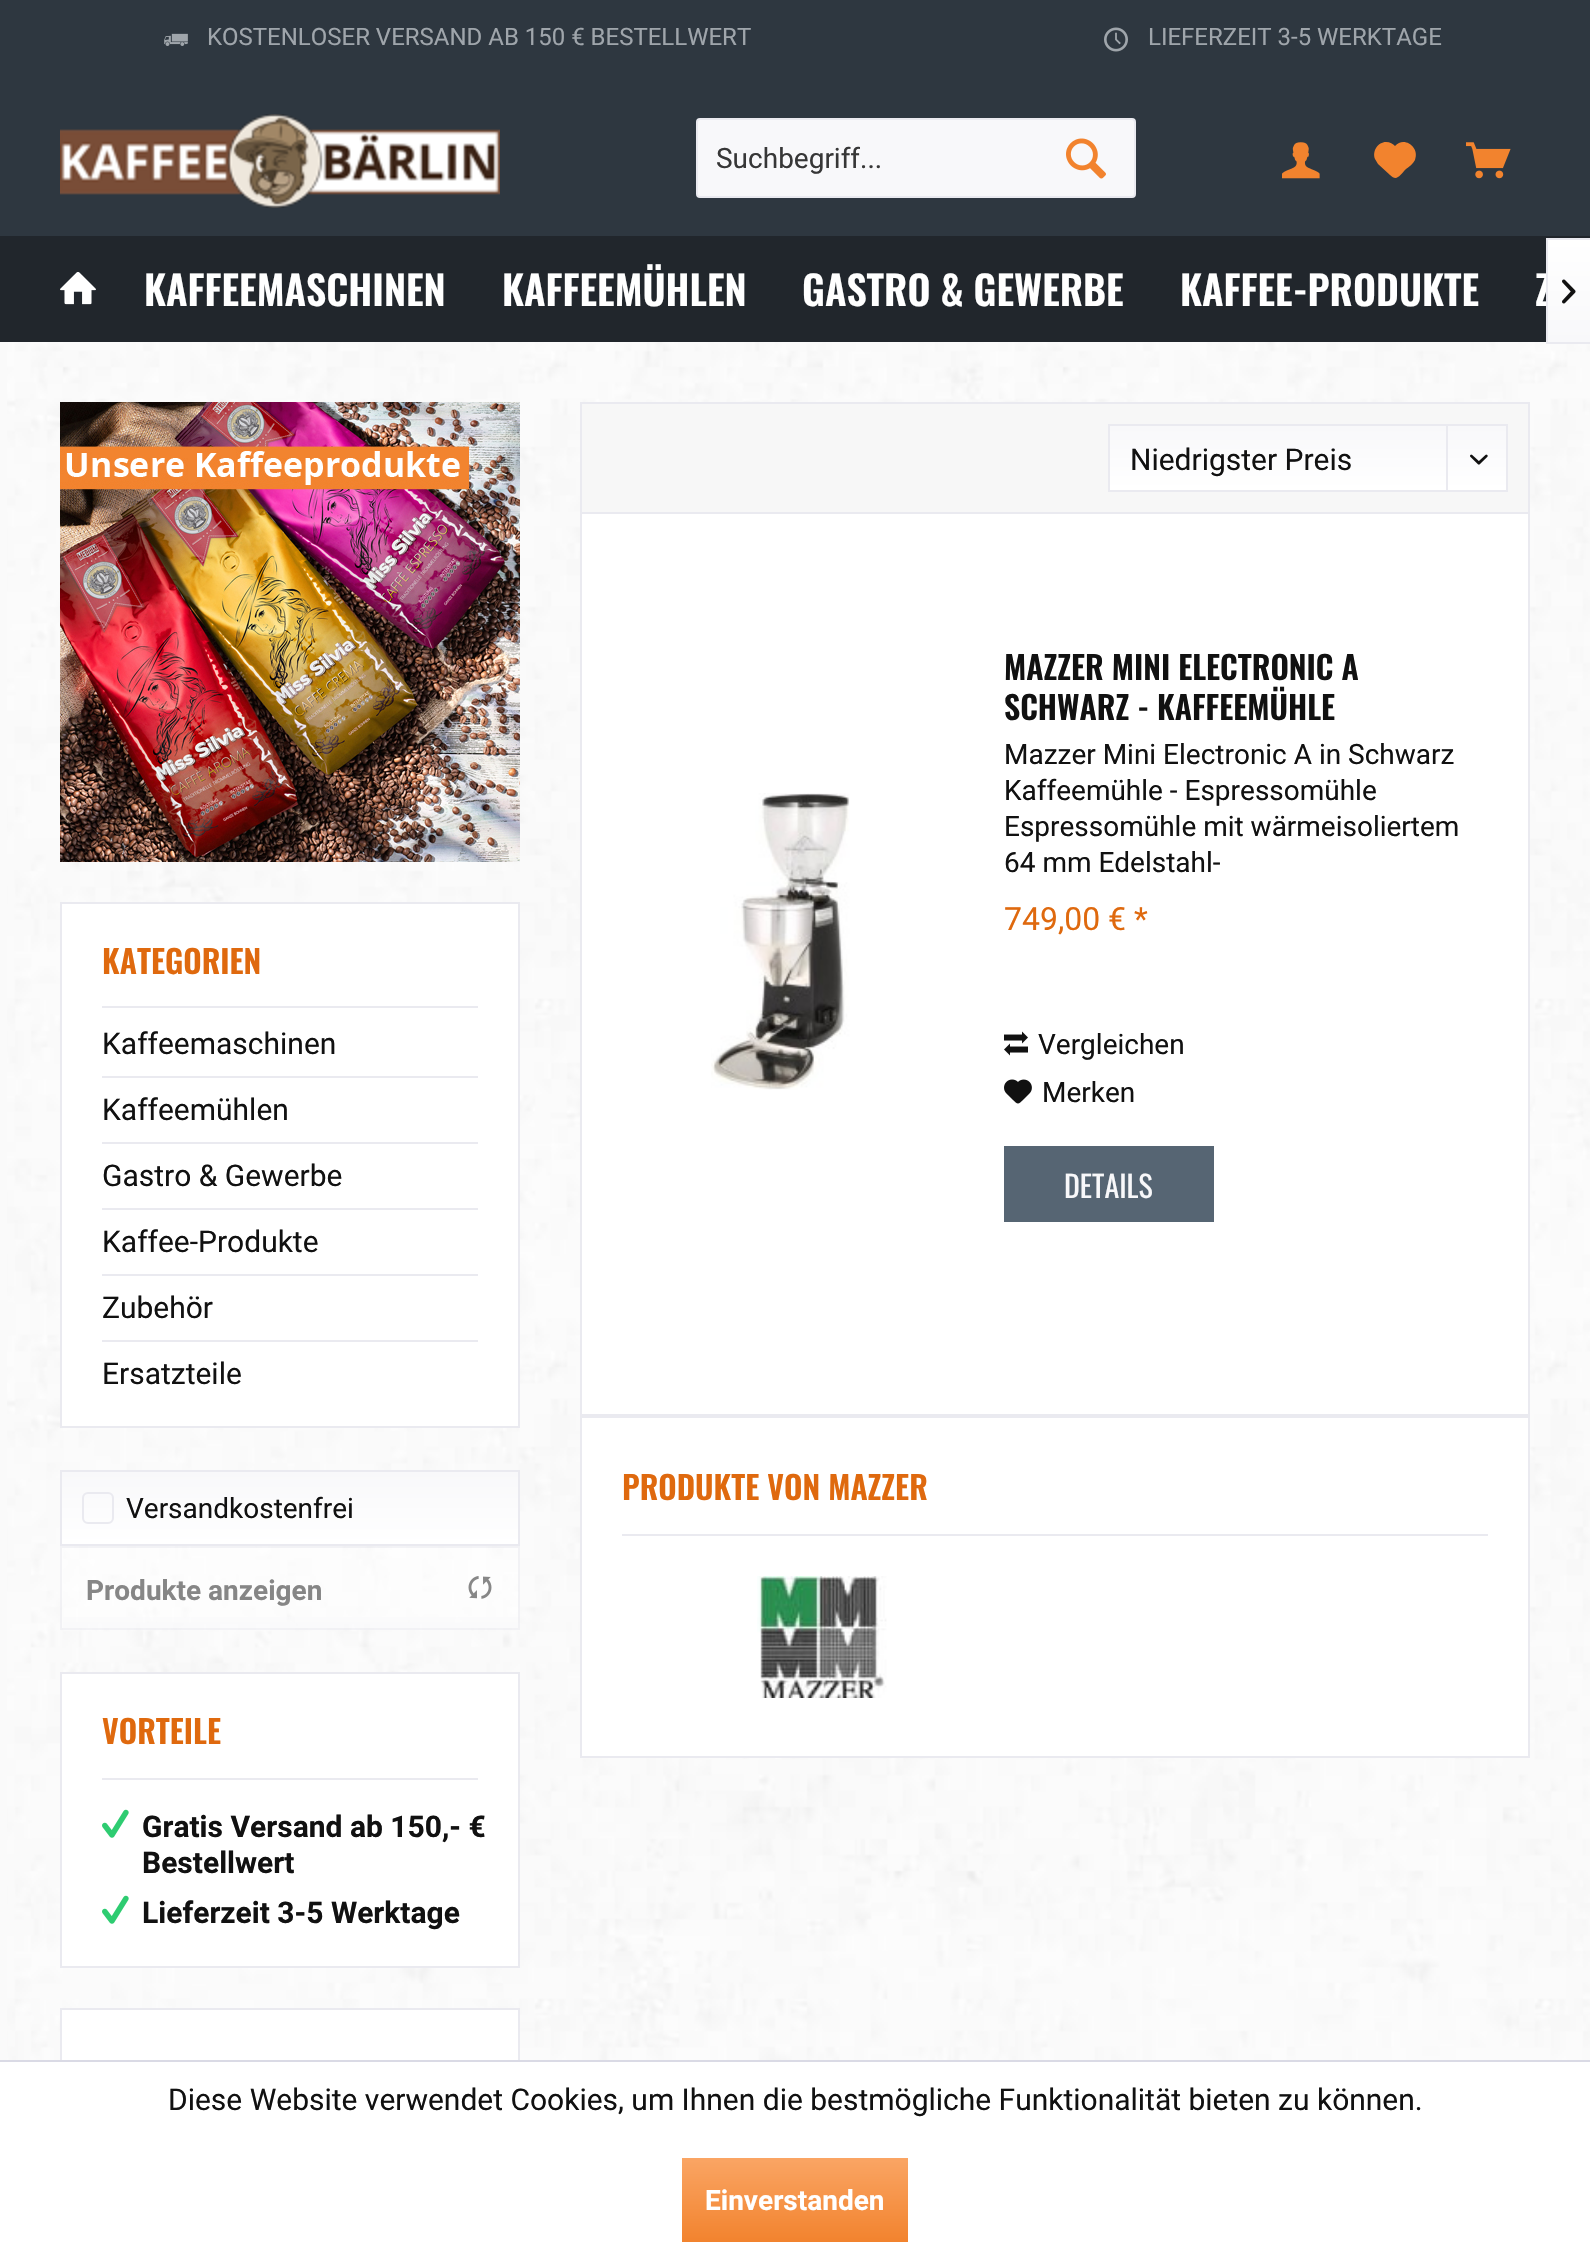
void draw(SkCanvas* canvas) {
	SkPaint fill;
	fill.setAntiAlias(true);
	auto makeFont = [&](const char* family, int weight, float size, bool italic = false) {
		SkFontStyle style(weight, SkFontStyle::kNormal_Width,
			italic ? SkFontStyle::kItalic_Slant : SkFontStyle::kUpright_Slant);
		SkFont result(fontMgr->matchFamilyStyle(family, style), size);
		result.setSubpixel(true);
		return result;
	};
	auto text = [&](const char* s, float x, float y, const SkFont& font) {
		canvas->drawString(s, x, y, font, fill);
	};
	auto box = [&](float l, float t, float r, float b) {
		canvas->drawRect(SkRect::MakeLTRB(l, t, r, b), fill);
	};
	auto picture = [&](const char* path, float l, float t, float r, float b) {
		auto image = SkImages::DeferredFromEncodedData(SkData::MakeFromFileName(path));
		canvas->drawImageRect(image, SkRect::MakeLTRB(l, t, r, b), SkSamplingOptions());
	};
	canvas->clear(0xFFFAFAFA);
	picture("image0.png", 7, 342, 1590, 2060);
	fill.setColor(0xFF2E3740);
	box(0, 0, 1590, 236);
	picture("image1.png", 164, 33, 188, 46);
	picture("image2.png", 1104, 27, 1128, 52);
	picture("image3.png", 60, 114, 500, 208);
	fill.setColor(0xFFF8F8FA);
	canvas->drawRoundRect(SkRect::MakeLTRB(697, 119, 1135, 197), 3, 3, fill);
	fill.setStyle(SkPaint::kStroke_Style);
	fill.setStrokeWidth(2);
	fill.setColor(0xFFEAEAF0);
	canvas->drawRoundRect(SkRect::MakeLTRB(697, 119, 1135, 197), 3, 3, fill);
	picture("image4.png", 1066, 138, 1106, 179);
	picture("image5.png", 1282, 142, 1320, 179);
	fill.setStyle(SkPaint::kFill_Style);
	fill.setColor(0xFFF2832E);
	canvas->drawPath(SkPathBuilder().moveTo(1386, 142).cubicTo(1378, 142, 1372, 151, 1375, 159).lineTo(1378, 164).lineTo(1390, 175).cubicTo(1397, 182, 1400, 175, 1406, 169).cubicTo(1409, 167, 1413, 164, 1415, 160).cubicTo(1420, 147, 1404, 136, 1395, 146).cubicTo(1393, 144, 1390, 142, 1386, 142).close().detach(), fill);
	picture("image6.png", 1466, 142, 1511, 179);
	fill.setColor(0xFF21262C);
	box(0, 236, 1590, 342);
	picture("image7.png", 60, 272, 96, 305);
	fill.setColor(0xFFEAEAF0);
	box(1546, 238, 1590, 240);
	box(1546, 342, 1590, 344);
	picture("image9.png", 60, 402, 520, 862);
	box(60, 902, 520, 904);
	box(518, 902, 520, 1012);
	box(60, 902, 62, 1012);
	fill.setColor(0xFFFFFFFF);
	box(62, 904, 518, 1426);
	fill.setColor(0xFFEAEAF0);
	box(102, 1006, 478, 1008);
	box(518, 1012, 520, 1428);
	box(60, 1426, 520, 1428);
	box(60, 1012, 62, 1428);
	box(102, 1076, 478, 1078);
	box(102, 1142, 478, 1144);
	box(102, 1208, 478, 1210);
	box(102, 1274, 478, 1276);
	box(102, 1340, 478, 1342);
	{
		const SkColor colors[] = {0xFFF8F8FA, 0xFFFFFFFF};
		const float stops[] = {0, 1};
		const SkPoint ends[] = {{290, 1472}, {290, 1544}};
		fill.setShader(SkGradientShader::MakeLinear(ends, colors, stops, 2, SkTileMode::kClamp));
		fill.setAlpha(255);
	}
	box(62, 1472, 518, 1544);
	fill.setStyle(SkPaint::kStroke_Style);
	fill.setShader(nullptr);
	fill.setColor(0xFFEAEAF0);
	canvas->drawRect(SkRect::MakeLTRB(61, 1471, 519, 1545), fill);
	canvas->drawRoundRect(SkRect::MakeLTRB(83, 1493, 113, 1523), 5, 5, fill);
	fill.setStyle(SkPaint::kFill_Style);
	fill.setColor(0x80FFFFFF);
	box(62, 1548, 518, 1628);
	{
		const SkColor colors[] = {0x80FFFFFF, 0x80F8F8FA};
		const float stops[] = {0, 1};
		const SkPoint ends[] = {{290, 1548}, {290, 1628}};
		fill.setShader(SkGradientShader::MakeLinear(ends, colors, stops, 2, SkTileMode::kClamp));
		fill.setAlpha(255);
	}
	box(63, 1617, 518, 1628);
	fill.setStyle(SkPaint::kStroke_Style);
	fill.setShader(nullptr);
	fill.setColor(0x80EAEAF0);
	canvas->drawRect(SkRect::MakeLTRB(61, 1547, 519, 1629), fill);
	picture("image10.png", 468, 1576, 492, 1599);
	fill.setStyle(SkPaint::kFill_Style);
	fill.setColor(0xFFFFFFFF);
	canvas->drawRect(SkRect::MakeLTRB(61, 1673, 519, 1967), fill);
	fill.setStyle(SkPaint::kStroke_Style);
	fill.setColor(0xFFEAEAF0);
	canvas->drawRect(SkRect::MakeLTRB(61, 1673, 519, 1967), fill);
	fill.setStyle(SkPaint::kFill_Style);
	box(102, 1778, 478, 1780);
	picture("image11.png", 102, 1809, 129, 1838);
	picture("image11.png", 102, 1895, 129, 1924);
	fill.setColor(0xFFFFFFFF);
	box(62, 2010, 518, 2060);
	fill.setStyle(SkPaint::kStroke_Style);
	fill.setColor(0xFFEAEAF0);
	canvas->drawRect(SkRect::MakeLTRB(61, 2009, 519, 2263), fill);
	fill.setStyle(SkPaint::kFill_Style);
	fill.setColor(0xFFF7F7F7);
	canvas->drawRect(SkRect::MakeLTRB(581, 403, 1529, 513), fill);
	fill.setStyle(SkPaint::kStroke_Style);
	fill.setColor(0xFFEAEAF0);
	canvas->drawRect(SkRect::MakeLTRB(581, 403, 1529, 513), fill);
	fill.setStyle(SkPaint::kFill_Style);
	{
		const SkColor colors[] = {0xFFF8F8FA, 0xFFFFFFFF};
		const float stops[] = {0, 1};
		const SkPoint ends[] = {{1308, 426}, {1308, 490}};
		fill.setShader(SkGradientShader::MakeLinear(ends, colors, stops, 2, SkTileMode::kClamp));
		fill.setAlpha(255);
	}
	box(1110, 426, 1506, 490);
	fill.setStyle(SkPaint::kStroke_Style);
	fill.setShader(nullptr);
	fill.setColor(0xFFEAEAF0);
	canvas->drawRect(SkRect::MakeLTRB(1109, 425, 1507, 491), fill);
	fill.setStyle(SkPaint::kFill_Style);
	box(1446, 426, 1448, 492);
	picture("image12.png", 1470, 454, 1488, 465);
	fill.setColor(0xFFFFFFFF);
	canvas->drawRect(SkRect::MakeLTRB(581, 513, 1529, 1415), fill);
	fill.setStyle(SkPaint::kStroke_Style);
	fill.setColor(0xFFEAEAF0);
	canvas->drawRect(SkRect::MakeLTRB(581, 513, 1529, 1415), fill);
	picture("image13.png", 711, 793, 850, 1090);
	picture("image14.png", 1004, 1031, 1028, 1056);
	picture("image15.png", 1004, 1079, 1032, 1104);
	fill.setStyle(SkPaint::kFill_Style);
	fill.setColor(0xFF566573);
	box(1004, 1146, 1214, 1222);
	fill.setColor(0xFFFFFFFF);
	canvas->drawRect(SkRect::MakeLTRB(581, 1417, 1529, 1757), fill);
	fill.setStyle(SkPaint::kStroke_Style);
	fill.setColor(0xFFEAEAF0);
	canvas->drawRect(SkRect::MakeLTRB(581, 1417, 1529, 1757), fill);
	fill.setStyle(SkPaint::kFill_Style);
	box(622, 1534, 1488, 1536);
	picture("image16.png", 757, 1576, 887, 1698);
	fill.setColor(0xFFFFFFFF);
	box(0, 2062, 1590, 2262);
	fill.setColor(0xFFDADAE5);
	box(0, 2060, 1590, 2062);
	{
		const SkColor colors[] = {0xFFFAA564, 0xFFF2832E};
		const float stops[] = {0, 1};
		const SkPoint ends[] = {{795, 2158}, {795, 2242}};
		fill.setShader(SkGradientShader::MakeLinear(ends, colors, stops, 2, SkTileMode::kClamp));
		fill.setAlpha(255);
	}
	box(682, 2158, 908, 2242);
	auto font1 = makeFont("Roboto", 400, 24);
	fill.setShader(nullptr);
	fill.setColor(0xFF9FA5AB);
	text("KOSTENLOSER VERSAND AB 150 € BESTELLWERT", 207, 45, font1);
	text("LIEFERZEIT 3-5 WERKTAGE", 1148, 45, font1);
	auto font2 = makeFont("Roboto", 400, 28);
	fill.setColor(0xFF373737);
	text("Suchbegriff...", 716, 168, font2);
	auto font3 = makeFont("Oswald", 600, 40);
	fill.setColor(0xFFFFFFFF);
	text("KAFFEEMASCHINEN", 144, 306, font3);
	text("KAFFEEMÜHLEN", 502, 306, font3);
	text("GASTRO & GEWERBE", 802, 306, font3);
	text("KAFFEE-PRODUKTE", 1180, 306, font3);
	text("Z", 1535, 306, font3);
	{
		const SkColor colors[] = {0xFFFFFFFF, 0xFFF8F8FA};
		const float stops[] = {0, 1};
		const SkPoint ends[] = {{1569, 240}, {1569, 342}};
		fill.setShader(SkGradientShader::MakeLinear(ends, colors, stops, 2, SkTileMode::kClamp));
		fill.setAlpha(255);
	}
	box(1548, 240, 1590, 342);
	fill.setShader(nullptr);
	fill.setColor(0xFFEAEAF0);
	box(1546, 238, 1548, 344);
	picture("image8.png", 1562, 279, 1576, 304);
	auto font4 = makeFont("Oswald", 600, 32);
	fill.setColor(0xFFDF690E);
	text("KATEGORIEN", 102, 974, font4);
	auto font5 = makeFont("Roboto", 400, 30);
	fill.setColor(0xFF111111);
	text("Kaffeemaschinen", 102, 1054, font5);
	text("Kaffeemühlen", 102, 1120, font5);
	text("Gastro & Gewerbe", 102, 1186, font5);
	text("Kaffee-Produkte", 102, 1252, font5);
	text("Zubehör", 102, 1318, font5);
	text("Ersatzteile", 102, 1384, font5);
	text("Versandkostenfrei", 126, 1518, font2);
	auto font6 = makeFont("Roboto", 700, 28);
	fill.setColor(0xFF868686);
	text("Produkte anzeigen", 86, 1600, font6);
	fill.setColor(0xFFDF690E);
	text("VORTEILE", 102, 1744, font4);
	auto font7 = makeFont("Roboto", 700, 30);
	fill.setColor(0xFF111111);
	text("Gratis Versand ab 150,- €", 142, 1837, font7);
	text("Bestellwert", 142, 1873, font7);
	text("Lieferzeit 3-5 Werktage", 142, 1923, font7);
	text("Niedrigster Preis", 1130, 470, font5);
	text("MAZZER MINI ELECTRONIC A", 1004, 680, font4);
	text("SCHWARZ - KAFFEEMÜHLE", 1004, 720, font4);
	text("Mazzer Mini Electronic A in Schwarz", 1004, 764, font2);
	text("Kaffeemühle - Espressomühle", 1004, 800, font2);
	text("Espressomühle mit wärmeisoliertem", 1004, 836, font2);
	text("64 mm Edelstahl-", 1004, 872, font2);
	auto font8 = makeFont("Roboto", 400, 32);
	fill.setColor(0xFFDF690E);
	text("749,00 € *", 1004, 930, font8);
	fill.setColor(0xFF111111);
	text("Vergleichen", 1038, 1054, font2);
	text("Merken", 1042, 1102, font2);
	auto font9 = makeFont("Oswald", 400, 30);
	fill.setColor(0xFFF8F8FA);
	text("DETAILS", 1064, 1198, font9);
	fill.setColor(0xFFDF690E);
	text("PRODUKTE VON MAZZER", 622, 1500, font4);
	fill.setColor(0xFF111111);
	text("Diese Website verwendet Cookies, um Ihnen die bestmögliche Funktionalität bieten zu können.", 168, 2110, font5);
	fill.setColor(0xFFFFFFFF);
	text("Einverstanden", 705, 2210, font6);
}
